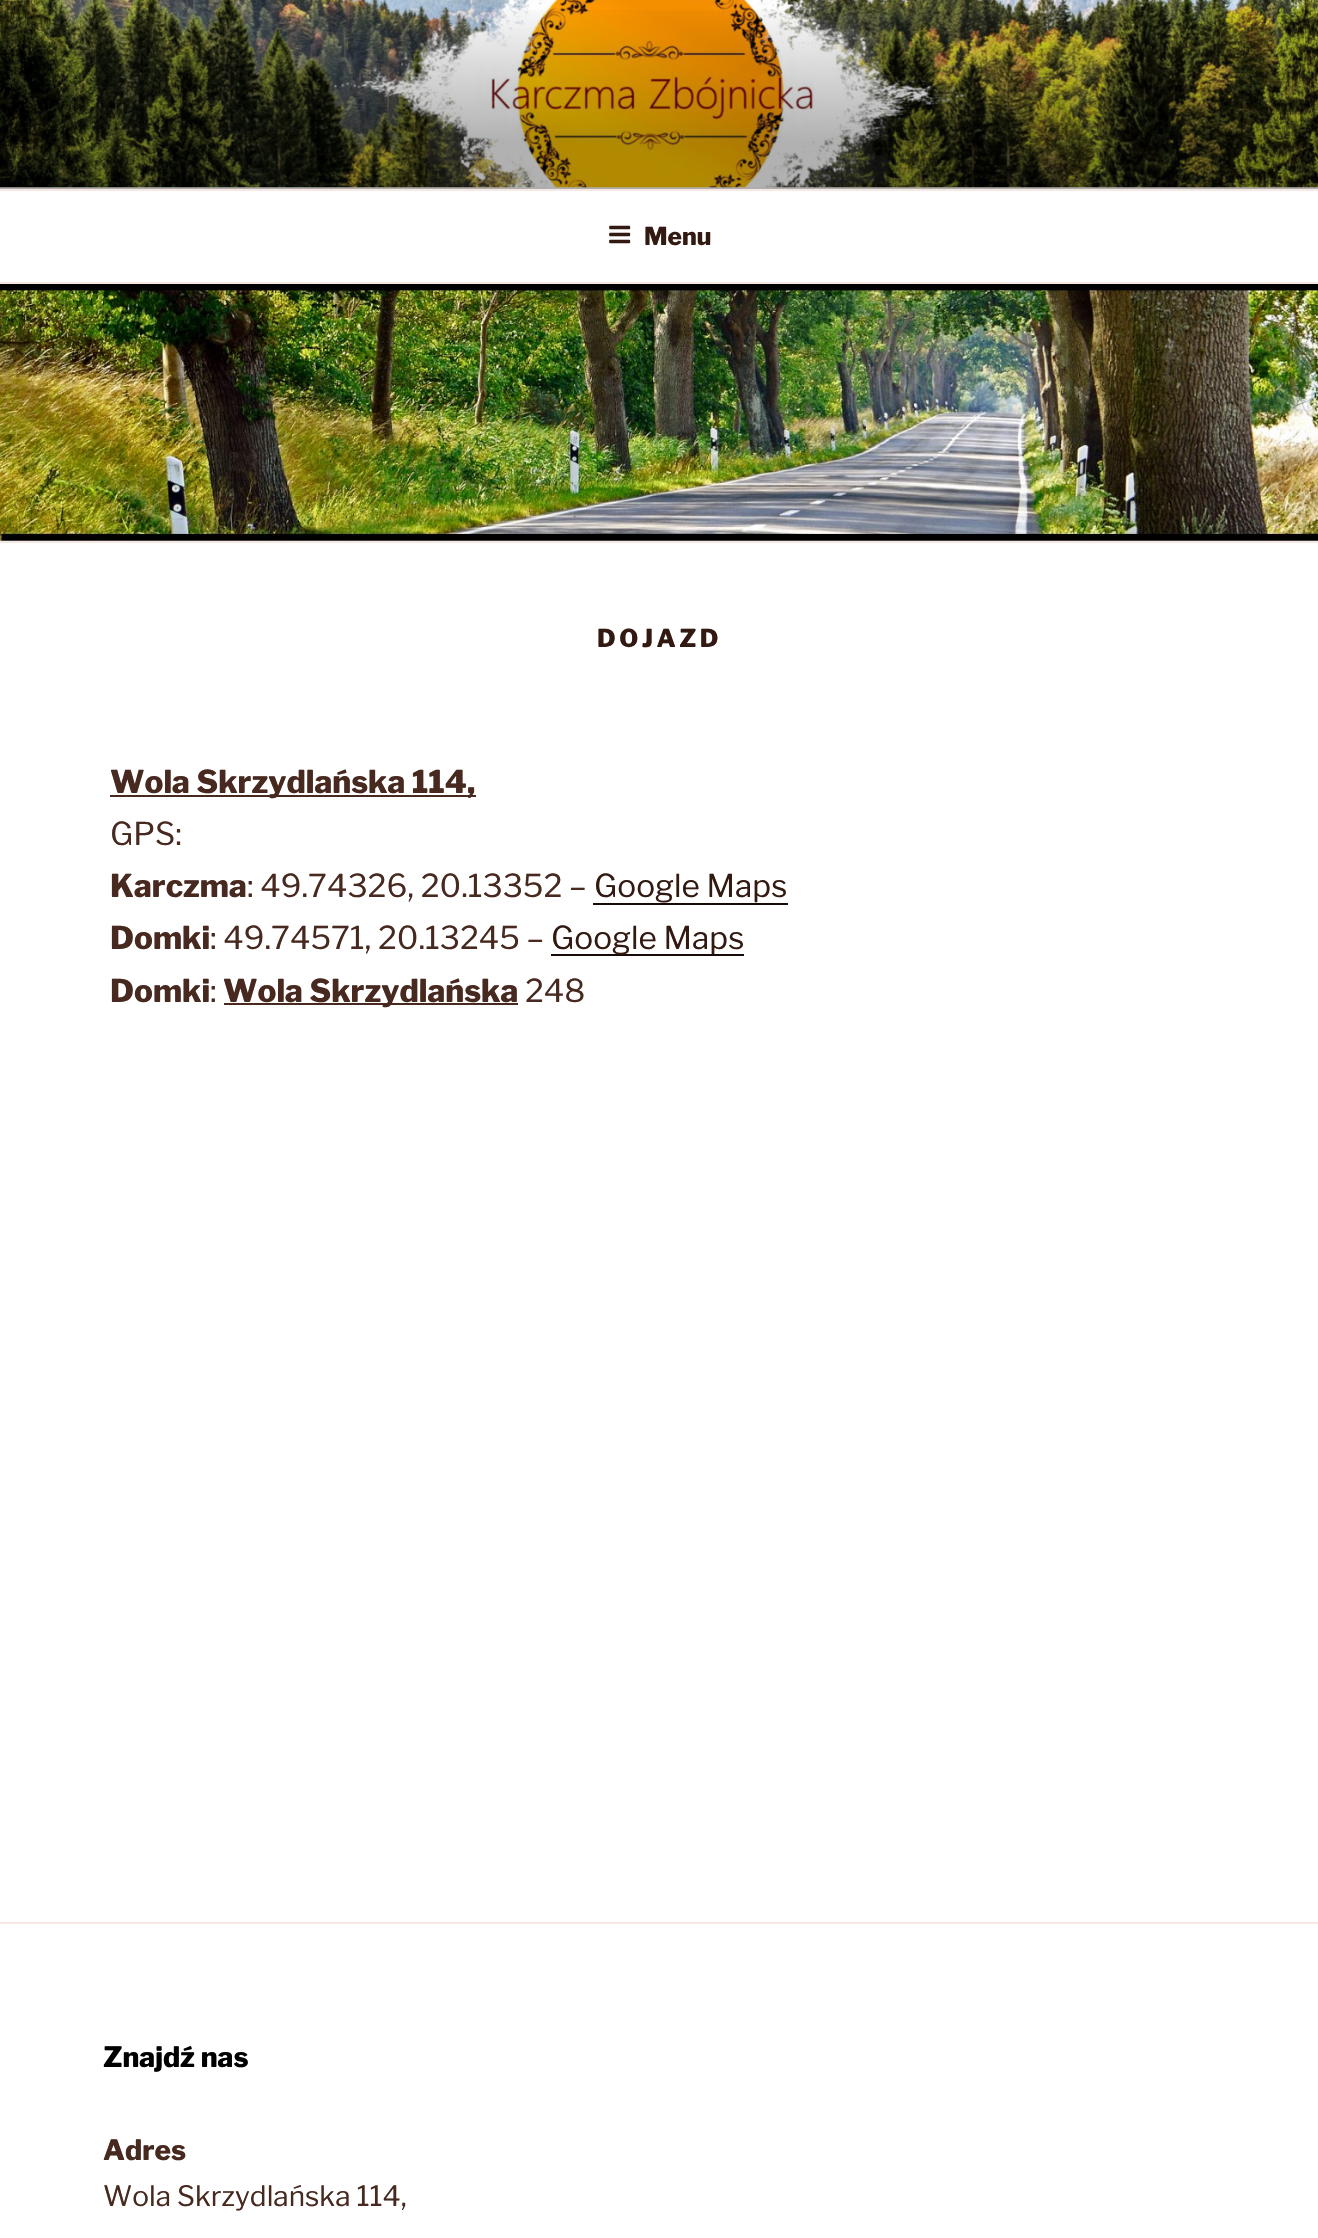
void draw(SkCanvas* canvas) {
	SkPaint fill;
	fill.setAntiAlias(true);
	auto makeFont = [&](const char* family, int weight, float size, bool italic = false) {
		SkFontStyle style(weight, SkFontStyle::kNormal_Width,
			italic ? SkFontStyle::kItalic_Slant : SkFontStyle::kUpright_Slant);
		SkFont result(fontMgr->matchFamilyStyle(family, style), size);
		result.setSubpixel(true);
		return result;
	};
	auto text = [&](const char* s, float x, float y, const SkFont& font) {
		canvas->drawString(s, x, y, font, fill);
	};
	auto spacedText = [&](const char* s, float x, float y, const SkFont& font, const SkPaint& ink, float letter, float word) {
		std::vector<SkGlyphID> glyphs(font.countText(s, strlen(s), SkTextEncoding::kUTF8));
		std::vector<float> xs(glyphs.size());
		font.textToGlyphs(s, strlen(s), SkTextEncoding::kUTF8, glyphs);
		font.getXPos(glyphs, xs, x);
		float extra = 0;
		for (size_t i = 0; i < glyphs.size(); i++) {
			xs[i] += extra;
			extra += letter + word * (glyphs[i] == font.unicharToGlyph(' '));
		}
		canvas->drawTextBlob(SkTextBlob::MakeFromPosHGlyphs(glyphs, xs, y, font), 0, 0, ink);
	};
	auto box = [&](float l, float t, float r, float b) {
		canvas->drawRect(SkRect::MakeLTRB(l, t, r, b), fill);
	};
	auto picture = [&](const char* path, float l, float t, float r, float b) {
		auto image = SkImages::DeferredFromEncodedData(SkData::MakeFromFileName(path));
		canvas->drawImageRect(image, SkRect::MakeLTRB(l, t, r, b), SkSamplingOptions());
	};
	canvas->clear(0xFFFFFFFF);
	fill.setColor(0xFFFCF9F7);
	box(0, 187, 1318, 189);
	picture("image0.png", 0, 0, 1318, 188);
	{
		const SkColor colors[] = {0x00000000, 0x4D000000, 0x4D000000};
		const float stops[] = {0, 0.75f, 1};
		const SkPoint ends[] = {{660, 0}, {660, 189}};
		fill.setShader(SkGradientShader::MakeLinear(ends, colors, stops, 3, SkTileMode::kClamp));
		fill.setAlpha(255);
	}
	box(0, 10, 1318, 189);
	fill.setShader(nullptr);
	fill.setColor(0xFFF6E9E4);
	box(0, 189, 1318, 191);
	box(0, 282, 1318, 284);
	picture("image1.png", 609, 225, 631, 244);
	box(0, 541, 1318, 543);
	picture("image2.png", 0, 284, 1318, 541);
	fill.setColor(0xFF47291F);
	box(110, 795, 476, 797);
	fill.setColor(0xFF170B08);
	box(593, 903, 788, 905);
	box(551, 954, 744, 956);
	fill.setColor(0xFF47291F);
	box(224, 1003, 518, 1005);
	fill.setColor(0xFFF6E9E4);
	box(0, 1922, 1318, 1924);
	auto font1 = makeFont("Libre Franklin", 100, 24.5f);
	fill.setColor(0xFF321911);
	text("Menu", 644, 245, font1);
	spacedText("DOJAZD", 597, 647, font1, fill, 3.5f, 0);
	auto font2 = makeFont("Libre Franklin", 100, 31.5f);
	fill.setColor(0xFF47291F);
	text("Wola Skrzydlańska 114,", 110, 793, font2);
	auto font3 = makeFont("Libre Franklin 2", 100, 31.5f);
	text("GPS:", 110, 845, font3);
	text("Karczma", 110, 897, font2);
	text(": 49.74326, 20.13352 –", 247, 897, font3);
	fill.setColor(0xFF321911);
	text("Google Maps", 594, 897, font3);
	fill.setColor(0xFF47291F);
	text("Domki", 110, 949, font2);
	text(": 49.74571, 20.13245 –", 210, 949, font3);
	fill.setColor(0xFF321911);
	text("Google Maps", 551, 949, font3);
	fill.setColor(0xFF47291F);
	text("Domki", 110, 1002, font2);
	text(":", 210, 1002, font3);
	text("Wola Skrzydlańska", 223, 1002, font2);
	text("248", 525, 1002, font3);
	auto font4 = makeFont("Libre Franklin", 100, 28);
	fill.setColor(0xFF000000);
	text("Znajdź nas", 103, 2067, font4);
	fill.setColor(0xFF47291F);
	text("Adres", 103, 2160, font4);
	auto font5 = makeFont("Libre Franklin 2", 100, 28);
	text("Wola Skrzydlańska 114,", 103, 2206, font5);
}
